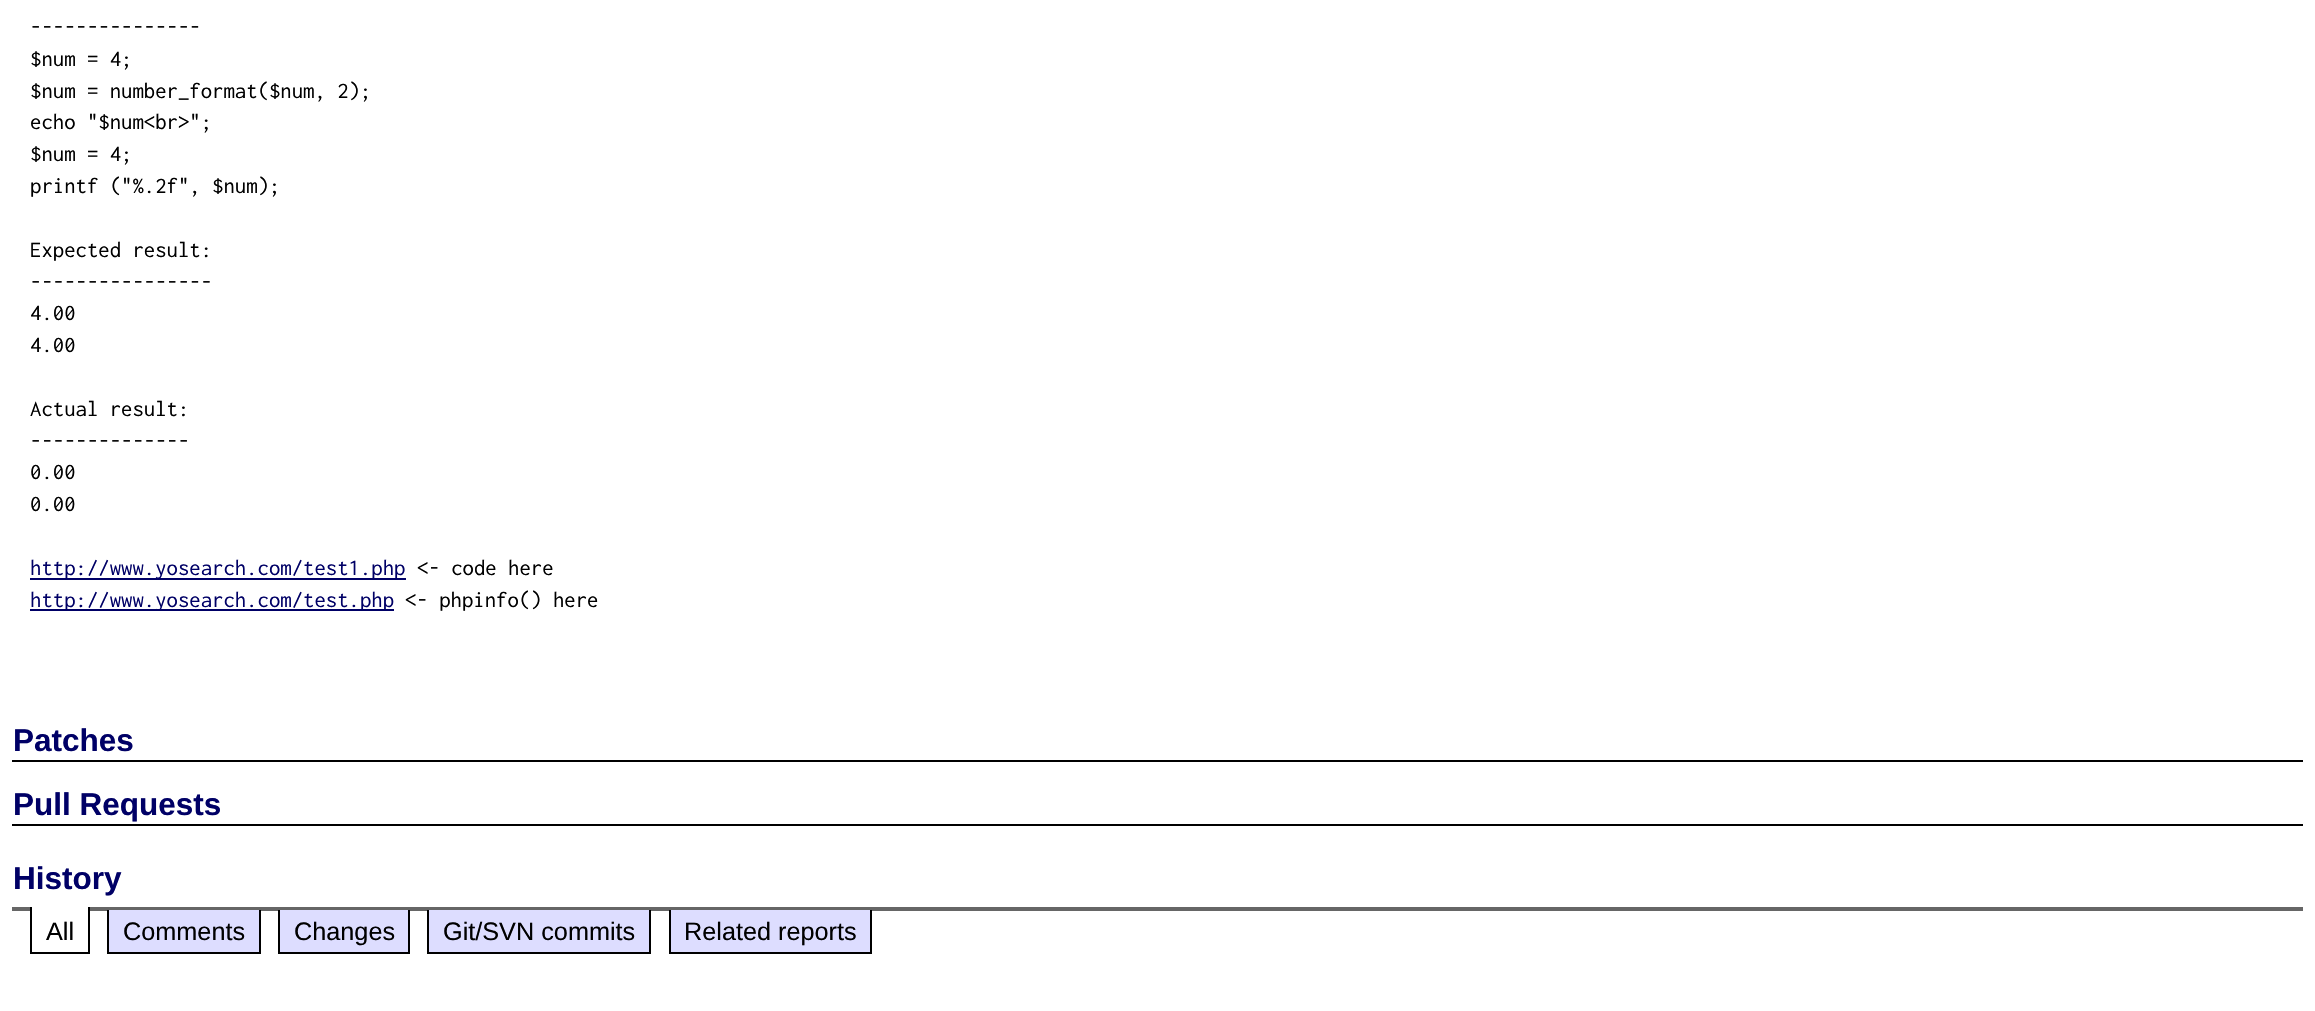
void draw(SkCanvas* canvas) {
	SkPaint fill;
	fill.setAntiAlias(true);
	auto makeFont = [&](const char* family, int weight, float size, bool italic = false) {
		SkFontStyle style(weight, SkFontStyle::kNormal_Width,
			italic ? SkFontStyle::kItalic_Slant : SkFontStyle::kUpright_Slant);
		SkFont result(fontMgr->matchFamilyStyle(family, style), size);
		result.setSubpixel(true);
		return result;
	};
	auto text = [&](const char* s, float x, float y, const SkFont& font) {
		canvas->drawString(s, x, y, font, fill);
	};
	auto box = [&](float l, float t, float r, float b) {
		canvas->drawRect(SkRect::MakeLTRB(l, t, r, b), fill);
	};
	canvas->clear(0xFFFFFFFF);
	fill.setColor(0xFF000066);
	box(30, 578, 406, 580);
	box(30, 609, 394, 611);
	fill.setColor(0xFF000000);
	box(12, 760, 2303, 762);
	box(12, 824, 2303, 826);
	fill.setColor(0xFF666666);
	box(12, 907, 2303, 911);
	fill.setColor(0xFFFFFFFF);
	box(32, 907, 88, 911);
	fill.setColor(0xFF000000);
	box(88, 907, 90, 954);
	box(30, 952, 89, 954);
	box(30, 907, 32, 954);
	fill.setColor(0xFFDDDDFF);
	box(109, 910, 259, 952);
	fill.setColor(0xFF000000);
	box(259, 910, 261, 954);
	box(107, 952, 261, 954);
	box(107, 910, 109, 954);
	fill.setColor(0xFFDDDDFF);
	box(280, 910, 408, 952);
	fill.setColor(0xFF000000);
	box(408, 910, 410, 954);
	box(278, 952, 410, 954);
	box(278, 910, 280, 954);
	fill.setColor(0xFFDDDDFF);
	box(429, 910, 649, 952);
	fill.setColor(0xFF000000);
	box(649, 910, 651, 954);
	box(427, 952, 651, 954);
	box(427, 910, 429, 954);
	fill.setColor(0xFFDDDDFF);
	box(671, 910, 870, 952);
	fill.setColor(0xFF000000);
	box(870, 910, 872, 954);
	box(669, 952, 872, 954);
	box(669, 910, 671, 954);
	auto font1 = makeFont("Inconsolata", 400, 22.75f);
	text("---------------", 30, 34, font1);
	text("$num = 4;", 30, 66, font1);
	text("$num = number_format($num, 2);", 30, 98, font1);
	text("echo \"$num<br>\";", 30, 129, font1);
	text("$num = 4;", 30, 161, font1);
	text("printf (\"%.2f\", $num);", 30, 193, font1);
	text("Expected result:", 30, 257, font1);
	text("----------------", 30, 289, font1);
	text("4.00", 30, 320, font1);
	text("4.00", 30, 352, font1);
	text("Actual result:", 30, 416, font1);
	text("--------------", 30, 448, font1);
	text("0.00", 30, 479, font1);
	text("0.00", 30, 511, font1);
	fill.setColor(0xFF000066);
	text("http://www.yosearch.com/test1.php", 30, 575, font1);
	fill.setColor(0xFF000000);
	text("<- code here", 417, 575, font1);
	fill.setColor(0xFF000066);
	text("http://www.yosearch.com/test.php", 30, 607, font1);
	fill.setColor(0xFF000000);
	text("<- phpinfo() here", 405, 607, font1);
	auto font2 = makeFont("Liberation Sans", 700, 31.5f);
	fill.setColor(0xFF000066);
	text("Patches", 13, 751, font2);
	text("Pull Requests", 13, 815, font2);
	text("History", 13, 889, font2);
	auto font3 = makeFont("Liberation Sans", 400, 25.25f);
	fill.setColor(0xFF000000);
	text("All", 46, 940, font3);
	text("Comments", 123, 940, font3);
	text("Changes", 294, 940, font3);
	text("Git/SVN commits", 443, 940, font3);
	text("Related reports", 684, 940, font3);
}
